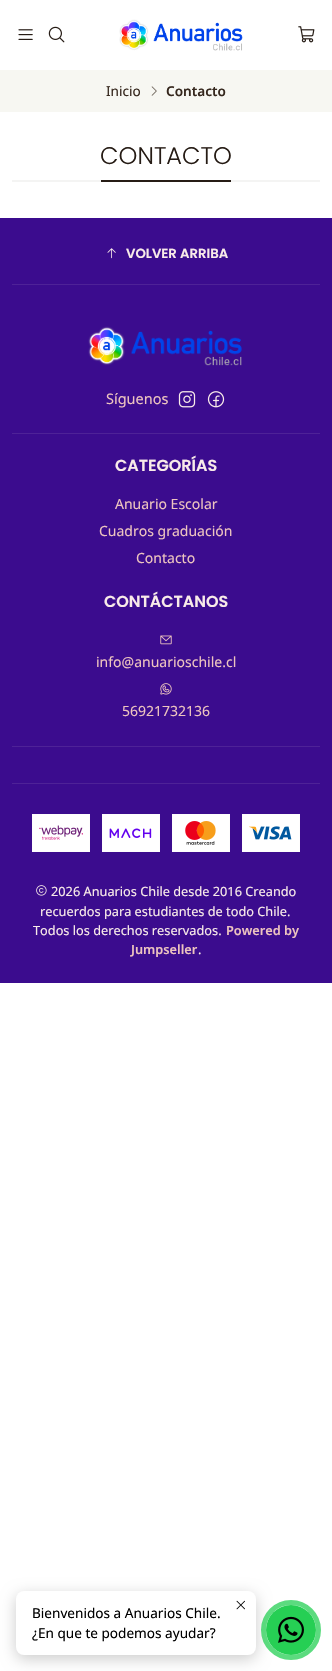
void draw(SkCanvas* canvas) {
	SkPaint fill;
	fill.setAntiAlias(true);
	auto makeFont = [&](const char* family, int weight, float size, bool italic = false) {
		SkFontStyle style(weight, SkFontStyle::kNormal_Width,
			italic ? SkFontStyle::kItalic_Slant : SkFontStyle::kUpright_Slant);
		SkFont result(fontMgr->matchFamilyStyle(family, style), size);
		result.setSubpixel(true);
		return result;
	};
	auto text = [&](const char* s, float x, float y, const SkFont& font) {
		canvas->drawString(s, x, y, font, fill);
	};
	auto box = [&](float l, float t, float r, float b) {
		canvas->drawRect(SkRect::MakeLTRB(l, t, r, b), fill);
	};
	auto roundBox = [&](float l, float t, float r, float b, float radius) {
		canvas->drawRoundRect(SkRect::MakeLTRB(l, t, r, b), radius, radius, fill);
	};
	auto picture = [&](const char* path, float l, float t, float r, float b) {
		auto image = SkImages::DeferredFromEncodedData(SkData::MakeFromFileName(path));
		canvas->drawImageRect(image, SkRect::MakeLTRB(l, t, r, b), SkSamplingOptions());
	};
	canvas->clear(0xFFFFFFFF);
	fill.setColor(0xFFF4F4F3);
	box(12, 180, 320, 182);
	picture("image0.png", 18, 29, 33, 40);
	picture("image1.png", 48, 26, 65, 43);
	picture("image2.png", 119, 19, 243, 51);
	picture("image3.png", 298, 26, 315, 43);
	fill.setColor(0xFFF7F7F2);
	box(0, 70, 332, 112);
	picture("image4.png", 151, 86, 157, 96);
	fill.setColor(0xFF261C15);
	box(101, 180, 231, 182);
	fill.setColor(0xFF3B0C8E);
	box(0, 218, 332, 983);
	picture("image5.png", 107, 248, 116, 259);
	fill.setColor(0xFF4E2297);
	box(12, 284, 320, 285);
	picture("image6.png", 88, 326, 242, 366);
	picture("image7.png", 178, 391, 196, 408);
	picture("image8.png", 207, 391, 225, 408);
	box(12, 433, 320, 434);
	picture("image9.png", 160, 635, 172, 645);
	picture("image10.png", 160, 683, 172, 695);
	box(12, 746, 320, 747);
	box(12, 783, 320, 784);
	fill.setColor(0xFFFFFFFF);
	canvas->drawRect(SkRect::MakeLTRB(32.5f, 814.5f, 89.5f, 851.5f), fill);
	fill.setStyle(SkPaint::kStroke_Style);
	fill.setStrokeWidth(1);
	fill.setColor(0xFFFEFDFD);
	canvas->drawRect(SkRect::MakeLTRB(32.5f, 814.5f, 89.5f, 851.5f), fill);
	picture("image11.png", 39, 825, 83, 840);
	fill.setStyle(SkPaint::kFill_Style);
	fill.setColor(0xFFFFFFFF);
	canvas->drawRect(SkRect::MakeLTRB(102.5f, 814.5f, 159.5f, 851.5f), fill);
	fill.setStyle(SkPaint::kStroke_Style);
	fill.setColor(0xFFFEFDFD);
	canvas->drawRect(SkRect::MakeLTRB(102.5f, 814.5f, 159.5f, 851.5f), fill);
	picture("image12.png", 109, 828, 152, 838);
	fill.setStyle(SkPaint::kFill_Style);
	fill.setColor(0xFFFFFFFF);
	canvas->drawRect(SkRect::MakeLTRB(172.5f, 814.5f, 229.5f, 851.5f), fill);
	fill.setStyle(SkPaint::kStroke_Style);
	fill.setColor(0xFFFEFDFD);
	canvas->drawRect(SkRect::MakeLTRB(172.5f, 814.5f, 229.5f, 851.5f), fill);
	picture("image13.png", 185, 821, 216, 845);
	fill.setStyle(SkPaint::kFill_Style);
	fill.setColor(0xFFFFFFFF);
	canvas->drawRect(SkRect::MakeLTRB(242.5f, 814.5f, 299.5f, 851.5f), fill);
	fill.setStyle(SkPaint::kStroke_Style);
	fill.setColor(0xFFFEFDFD);
	canvas->drawRect(SkRect::MakeLTRB(242.5f, 814.5f, 299.5f, 851.5f), fill);
	picture("image14.png", 249, 826, 292, 840);
	picture("image15.png", 36, 885, 47, 896);
	fill.setStyle(SkPaint::kFill_Style);
	fill.setColor(0x33000000);
	fill.setMaskFilter(SkMaskFilter::MakeBlur(kNormal_SkBlurStyle, 7.5f));
	canvas->drawRoundRect(SkRect::MakeLTRB(16, 1595, 256, 1659), 8, 8, fill);
	fill.setMaskFilter(nullptr);
	fill.setColor(0xFFFFFFFF);
	roundBox(16, 1591, 256, 1655, 8);
	picture("image16.png", 236, 1600, 245, 1610);
	fill.setColor(0xFF26CF54);
	canvas->drawCircle(291, 1630, 25, fill);
	picture("image17.png", 278, 1616, 304, 1643);
	fill.setStyle(SkPaint::kStroke_Style);
	fill.setStrokeWidth(5);
	fill.setColor(0xBF26CF54);
	canvas->drawCircle(291, 1630, 27.5f, fill);
	auto font1 = makeFont("Noto Sans", 400, 13.6f);
	fill.setStyle(SkPaint::kFill_Style);
	fill.setColor(0xFF35271D);
	text("Inicio", 106, 96, font1);
	auto font2 = makeFont("Noto Sans", 600, 13.6f);
	text("Contacto", 166, 96, font2);
	auto font3 = makeFont("Poppins", 300, 24);
	fill.setColor(0xFF261C15);
	text("CONTACTO", 100, 164, font3);
	auto font4 = makeFont("Poppins", 600, 13.25f);
	fill.setColor(0xFFF9EBE9);
	text("VOLVER ARRIBA", 126, 258, font4);
	auto font5 = makeFont("Noto Sans", 400, 14.5f);
	fill.setColor(0xFFEDC4BF);
	text("Síguenos", 106, 404, font5);
	auto font6 = makeFont("Poppins", 600, 16);
	fill.setColor(0xFFF9EBE9);
	text("CATEGORÍAS", 115, 471, font6);
	auto font7 = makeFont("Noto Sans", 400, 14);
	fill.setColor(0xFFEDC4BF);
	text("Anuario Escolar", 115, 509, font7);
	text("Cuadros graduación", 99, 536, font7);
	text("Contacto", 136, 563, font7);
	fill.setColor(0xFFF9EBE9);
	text("CONTÁCTANOS", 104, 607, font6);
	fill.setColor(0xFFEDC4BF);
	text("info@anuarioschile.cl", 96, 667, font7);
	text("56921732136", 122, 716, font7);
	auto font8 = makeFont("Noto Sans", 400, 12.75f);
	fill.setColor(0xFFF9EBE9);
	text("2026 Anuarios Chile desde 2016 Creando", 51, 896, font8);
	text("recuerdos para estudiantes de todo Chile.", 40, 916, font8);
	text("Todos los derechos reservados.", 33, 935, font8);
	auto font9 = makeFont("Noto Sans", 600, 12.75f);
	fill.setColor(0xFFEDC4BF);
	text("Powered by", 226, 935, font9);
	text("Jumpseller", 131, 954, font9);
	fill.setColor(0xFFF9EBE9);
	text(".", 198, 954, font8);
	fill.setColor(0xFF000000);
	text("Bienvenidos a Anuarios Chile.", 32, 1618, font1);
	text("¿En que te podemos ayudar?", 32, 1638, font1);
}
